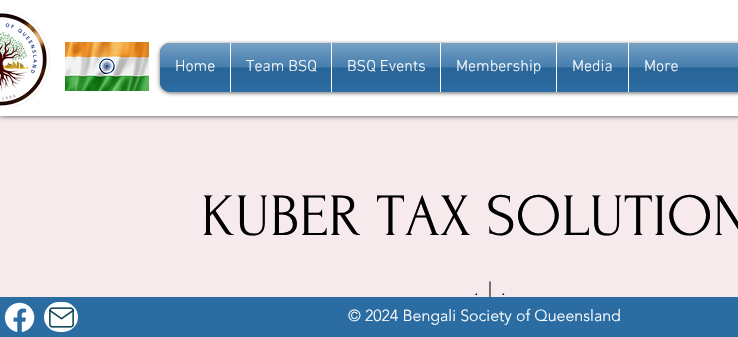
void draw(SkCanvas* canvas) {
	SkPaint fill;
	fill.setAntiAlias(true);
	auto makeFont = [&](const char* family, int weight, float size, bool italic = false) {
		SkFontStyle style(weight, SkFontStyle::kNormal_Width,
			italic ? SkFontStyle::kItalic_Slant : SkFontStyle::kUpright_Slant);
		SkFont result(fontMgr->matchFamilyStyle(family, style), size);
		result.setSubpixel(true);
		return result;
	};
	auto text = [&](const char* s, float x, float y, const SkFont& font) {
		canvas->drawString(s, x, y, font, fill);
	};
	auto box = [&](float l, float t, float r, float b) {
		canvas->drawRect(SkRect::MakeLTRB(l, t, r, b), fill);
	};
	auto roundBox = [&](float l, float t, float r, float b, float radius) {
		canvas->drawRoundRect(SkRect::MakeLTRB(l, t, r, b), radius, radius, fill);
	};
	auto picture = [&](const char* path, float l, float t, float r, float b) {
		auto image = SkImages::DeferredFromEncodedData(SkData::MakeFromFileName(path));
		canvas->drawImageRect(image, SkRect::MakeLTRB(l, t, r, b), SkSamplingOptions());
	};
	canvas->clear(0xFFF6EAED);
	fill.setColor(0xB3000000);
	fill.setMaskFilter(SkMaskFilter::MakeBlur(kNormal_SkBlurStyle, 2.5f));
	canvas->drawRect(SkRect::MakeLTRB(0, 0, 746, 116), fill);
	fill.setMaskFilter(nullptr);
	fill.setColor(0xFFFFFFFF);
	box(0, 0, 738, 116);
	picture("image0.png", 0, 10, 51, 107);
	picture("image1.png", 65, 42, 149, 91);
	fill.setColor(0x99000000);
	fill.setMaskFilter(SkMaskFilter::MakeBlur(kNormal_SkBlurStyle, 2));
	canvas->drawRoundRect(SkRect::MakeLTRB(160, 44, 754, 93), 10, 10, fill);
	fill.setMaskFilter(nullptr);
	fill.setColor(0xFF2B6CA3);
	roundBox(160, 43, 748, 92, 10);
	picture("image2.png", 160, 43, 738, 87);
	canvas->drawPath(SkPathBuilder().moveTo(170, 43).lineTo(230, 43).lineTo(230, 92).lineTo(170, 92).cubicTo(164.5f, 92, 160, 87.5f, 160, 82).lineTo(160, 53).cubicTo(160, 47.5f, 164.5f, 43, 170, 43).close().detach(), fill);
	box(231, 43, 331, 87);
	fill.setColor(0xFFFFFFFF);
	box(230, 43, 231, 92);
	fill.setColor(0xFF2B6CA3);
	box(332, 43, 440, 87);
	fill.setColor(0xFFFFFFFF);
	box(331, 43, 332, 92);
	fill.setColor(0xFF2B6CA3);
	box(441, 43, 556, 87);
	fill.setColor(0xFFFFFFFF);
	box(440, 43, 441, 92);
	fill.setColor(0xFF2B6CA3);
	box(557, 43, 628, 87);
	fill.setColor(0xFFFFFFFF);
	box(556, 43, 557, 92);
	fill.setColor(0xFF2B6CA3);
	box(629, 43, 693, 87);
	fill.setColor(0xFFFFFFFF);
	box(628, 43, 629, 92);
	auto font1 = makeFont("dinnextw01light", 300, 16);
	text("Home", 175, 71, font1);
	picture("image3.png", 160, 43, 230, 87);
	text("Team BSQ", 246, 71, font1);
	picture("image4.png", 231, 43, 331, 87);
	text("BSQ Events", 347, 71, font1);
	picture("image5.png", 332, 43, 440, 87);
	text("Membership", 456, 71, font1);
	picture("image6.png", 441, 43, 556, 87);
	text("Media", 572, 71, font1);
	picture("image7.png", 557, 43, 628, 87);
	text("More", 644, 71, font1);
	picture("image8.png", 629, 43, 693, 87);
	auto font2 = makeFont("Forum", 400, 60);
	fill.setColor(0xFF000000);
	text("KUBER TAX SOLUTION", 201, 235, font2);
	auto font3 = makeFont("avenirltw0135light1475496", 300, 18);
	text(".", 474, 295, font3);
	text("|", 488, 295, font3);
	text(".", 501, 295, font3);
	fill.setColor(0xFF2B6CA3);
	box(0, 297, 738, 337);
	picture("image9.png", 4, 302, 35, 332);
	fill.setColor(0xFFFFFFFF);
	roundBox(44, 302, 78, 332, 15);
	picture("image10.png", 49, 307, 74, 328);
	auto font4 = makeFont("avenirltw0135light1475496", 300, 16);
	text("© 2024 Bengali Society of Queensland", 348, 321, font4);
}
